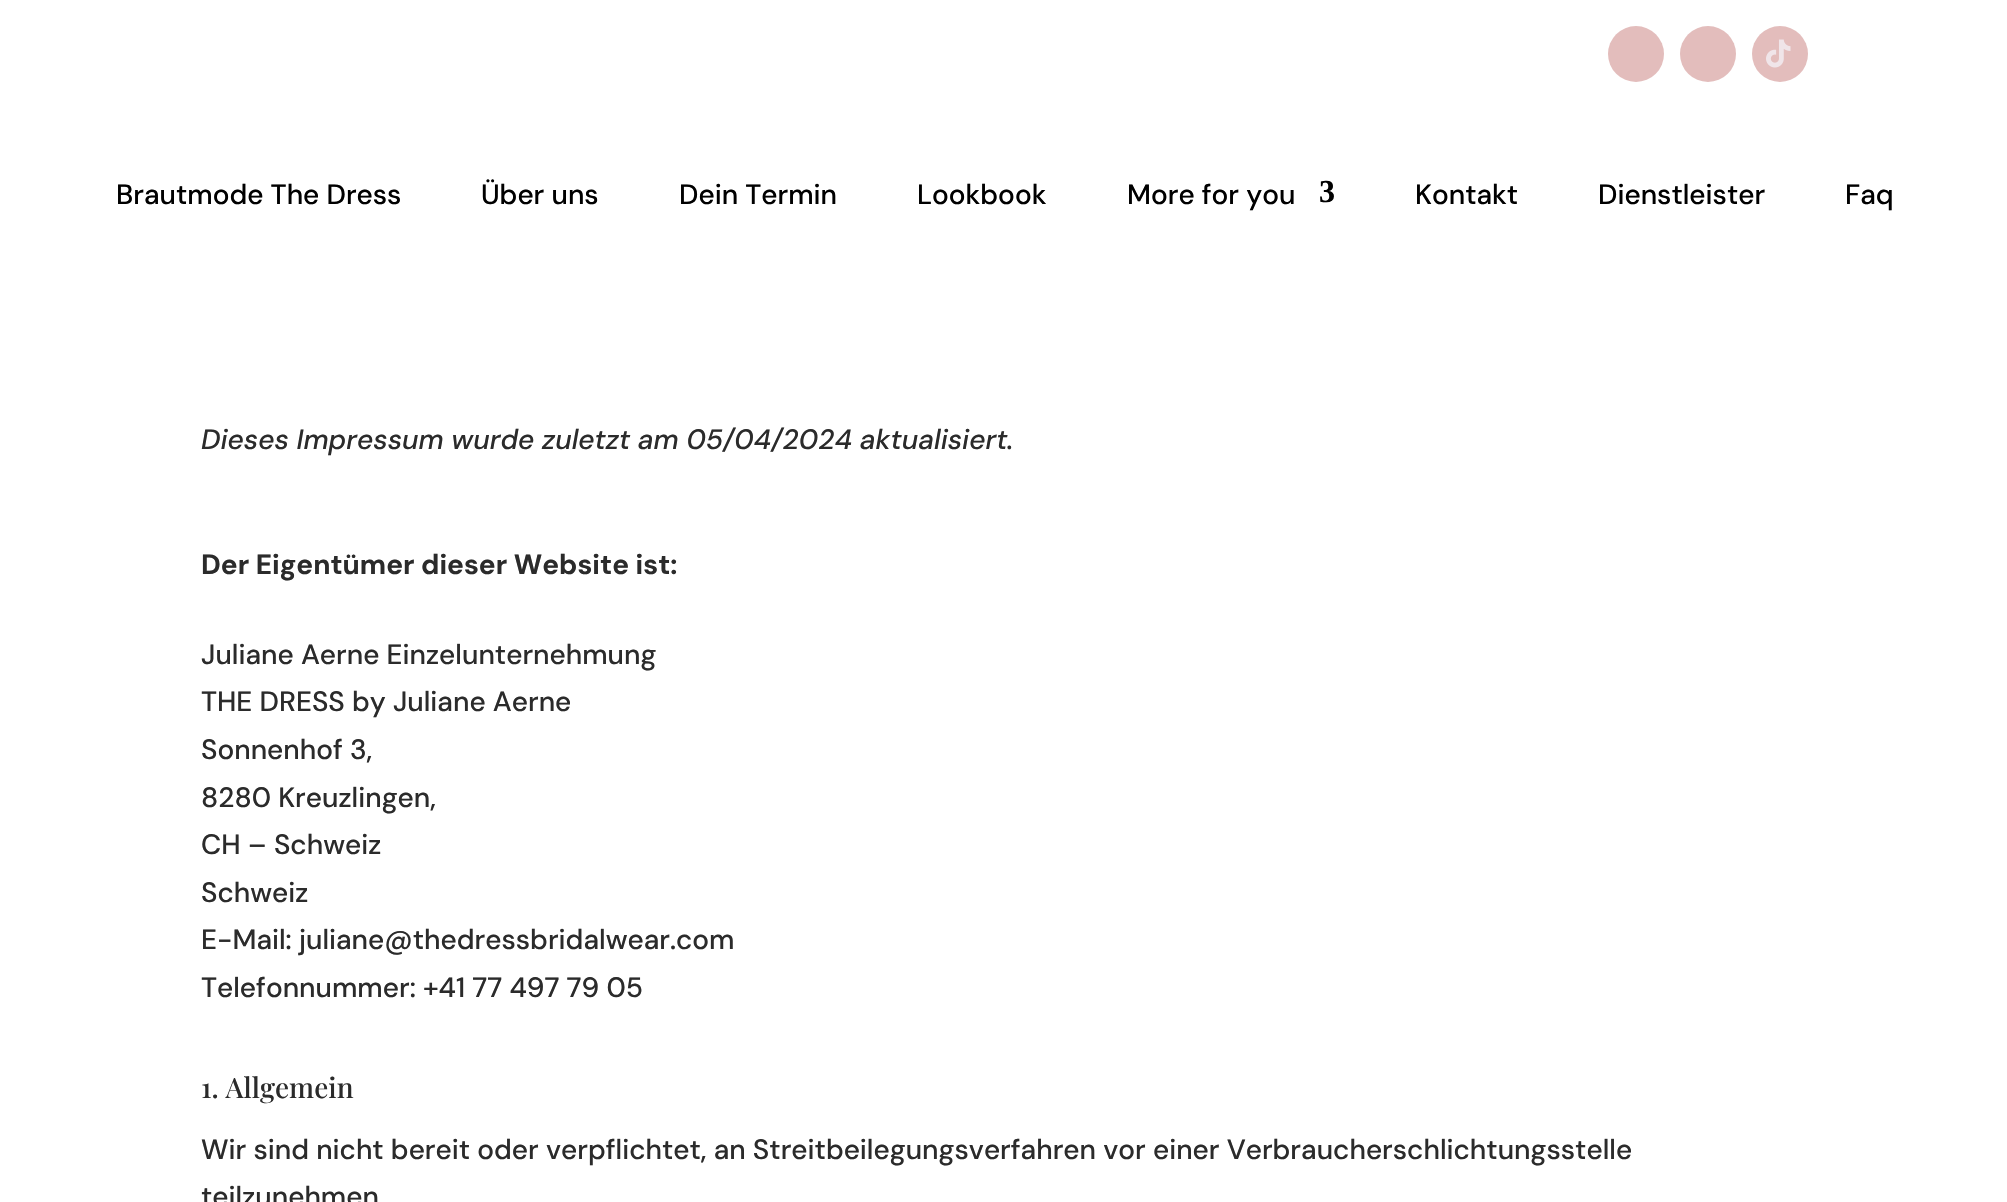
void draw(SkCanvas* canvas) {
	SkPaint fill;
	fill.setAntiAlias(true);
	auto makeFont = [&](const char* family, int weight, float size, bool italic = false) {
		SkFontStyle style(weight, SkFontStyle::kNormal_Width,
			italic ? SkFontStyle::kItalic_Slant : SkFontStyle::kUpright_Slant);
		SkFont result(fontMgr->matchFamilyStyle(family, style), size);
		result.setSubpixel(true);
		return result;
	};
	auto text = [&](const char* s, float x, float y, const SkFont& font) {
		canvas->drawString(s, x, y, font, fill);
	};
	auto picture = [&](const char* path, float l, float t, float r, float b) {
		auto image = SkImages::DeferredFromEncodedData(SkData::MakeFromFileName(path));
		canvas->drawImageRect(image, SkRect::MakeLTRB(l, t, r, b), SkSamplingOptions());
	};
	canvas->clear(0xFFFFFFFF);
	fill.setColor(0xFFE3BDBC);
	canvas->drawCircle(1636, 54, 28, fill);
	canvas->drawCircle(1708, 54, 28, fill);
	canvas->drawCircle(1780, 54, 28, fill);
	picture("image0.png", 1766, 39, 1791, 68);
	auto font1 = makeFont("DM Sans", 500, 28);
	fill.setColor(0xFF000000);
	text("Brautmode The Dress", 116, 204, font1);
	text("Über uns", 481, 204, font1);
	text("Dein Termin", 679, 204, font1);
	text("Lookbook", 917, 204, font1);
	text("More for you", 1127, 204, font1);
	auto font2 = makeFont("Liberation Serif", 700, 32);
	text("3", 1319, 202, font2);
	text("Kontakt", 1415, 204, font1);
	text("Dienstleister", 1598, 204, font1);
	text("Faq", 1845, 204, font1);
	auto font3 = makeFont("DM Sans", 500, 28, true);
	fill.setColor(0xFF2B2B2B);
	text("Dieses Impressum wurde zuletzt am 05/04/2024 aktualisiert.", 201, 449, font3);
	auto font4 = makeFont("DM Sans", 700, 28);
	text("Der Eigentümer dieser Website ist:", 201, 574, font4);
	text("Juliane Aerne Einzelunternehmung", 201, 664, font1);
	text("THE DRESS by Juliane Aerne", 201, 711, font1);
	text("Sonnenhof 3,", 201, 759, font1);
	text("8280 Kreuzlingen,", 201, 807, font1);
	text("CH – Schweiz", 201, 854, font1);
	text("Schweiz", 201, 902, font1);
	text("E-Mail: juliane@thedressbridalwear.com", 201, 949, font1);
	text("Telefonnummer: +41 77 497 79 05", 201, 997, font1);
	auto font5 = makeFont("Playfair Display", 500, 28);
	text("1. Allgemein", 201, 1098, font5);
	text("Wir sind nicht bereit oder verpflichtet, an Streitbeilegungsverfahren vor einer Verbraucherschlichtungsstelle", 201, 1159, font1);
	text("teilzunehmen", 201, 1206, font1);
}
